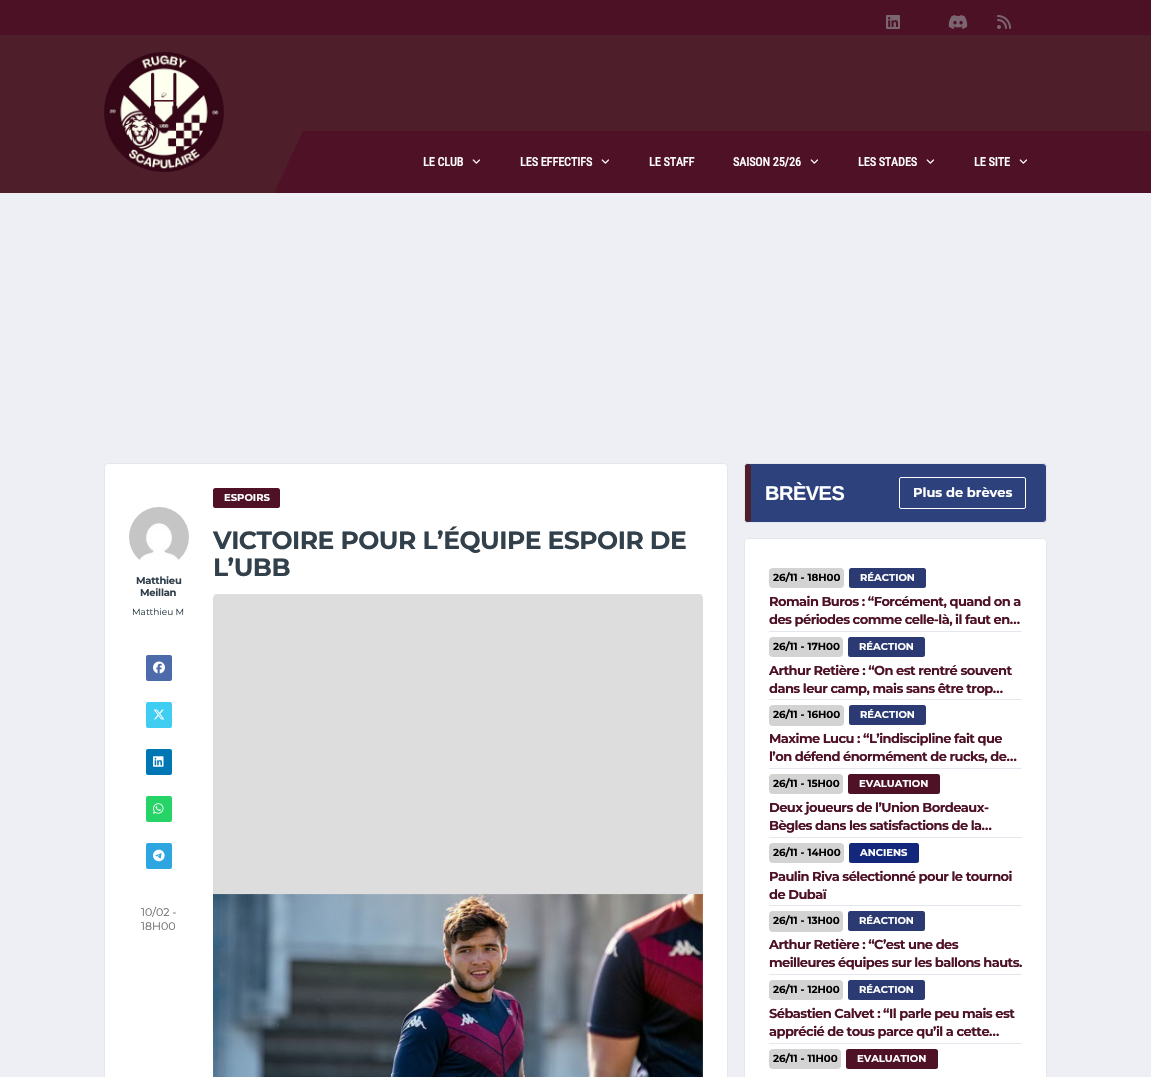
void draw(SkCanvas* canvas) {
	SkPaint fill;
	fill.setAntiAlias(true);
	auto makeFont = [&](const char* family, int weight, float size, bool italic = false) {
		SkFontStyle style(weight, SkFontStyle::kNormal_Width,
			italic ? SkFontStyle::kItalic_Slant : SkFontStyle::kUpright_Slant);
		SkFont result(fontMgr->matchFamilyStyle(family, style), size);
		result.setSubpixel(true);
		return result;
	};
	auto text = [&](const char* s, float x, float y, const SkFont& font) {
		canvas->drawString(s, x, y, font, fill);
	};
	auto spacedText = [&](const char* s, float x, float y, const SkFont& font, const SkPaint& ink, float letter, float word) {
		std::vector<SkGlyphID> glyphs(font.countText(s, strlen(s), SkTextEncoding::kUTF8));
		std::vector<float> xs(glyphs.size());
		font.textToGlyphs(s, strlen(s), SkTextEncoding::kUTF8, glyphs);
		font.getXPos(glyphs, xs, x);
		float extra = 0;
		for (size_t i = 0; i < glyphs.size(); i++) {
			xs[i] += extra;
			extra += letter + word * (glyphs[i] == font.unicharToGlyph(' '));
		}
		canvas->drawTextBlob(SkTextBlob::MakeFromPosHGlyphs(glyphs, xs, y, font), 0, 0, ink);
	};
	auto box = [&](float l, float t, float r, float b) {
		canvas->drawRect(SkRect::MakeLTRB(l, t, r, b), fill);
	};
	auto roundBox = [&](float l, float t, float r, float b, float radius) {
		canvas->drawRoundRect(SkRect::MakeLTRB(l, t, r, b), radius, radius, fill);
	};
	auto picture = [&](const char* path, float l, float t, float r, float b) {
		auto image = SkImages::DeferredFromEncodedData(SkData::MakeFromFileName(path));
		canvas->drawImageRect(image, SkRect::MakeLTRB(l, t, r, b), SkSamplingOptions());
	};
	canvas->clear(0xFFEDEFF4);
	fill.setColor(0xFF4F1E2B);
	box(0, 35, 1151, 193);
	fill.setColor(0xFF4D1125);
	box(0, 0, 1151, 35);
	picture("image0.png", 886, 15, 900, 29);
	picture("image1.png", 948, 15, 968, 29);
	picture("image2.png", 997, 15, 1011, 29);
	fill.setColor(0xFF4E1125);
	box(274, 131, 1151, 193);
	fill.setColor(0xFF4F1E2B);
	canvas->drawPath(SkPathBuilder().moveTo(93, 131).lineTo(303, 131).lineTo(274, 193).lineTo(64, 193).close().detach(), fill);
	picture("image3.png", 104, 52, 224, 172);
	picture("image4.png", 472, 159, 480, 164);
	picture("image4.png", 601, 159, 609, 164);
	picture("image4.png", 810, 159, 818, 164);
	picture("image4.png", 926, 159, 934, 164);
	picture("image4.png", 1019, 159, 1027, 164);
	fill.setColor(0xFFFFFFFF);
	canvas->drawRoundRect(SkRect::MakeLTRB(104.5f, 463.5f, 727.5f, 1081.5f), 3.5f, 3.5f, fill);
	fill.setStyle(SkPaint::kStroke_Style);
	fill.setStrokeWidth(1);
	fill.setColor(0xFFE4E7ED);
	canvas->drawRoundRect(SkRect::MakeLTRB(104.5f, 463.5f, 727.5f, 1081.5f), 3.5f, 3.5f, fill);
	fill.setStyle(SkPaint::kFill_Style);
	fill.setColor(0xFF4E1125);
	roundBox(213, 488, 280, 508, 2.5f);
	fill.setColor(0xFFDDDDDD);
	canvas->drawPath(SkPathBuilder().moveTo(217, 594).lineTo(699, 594).cubicTo(701, 594, 703, 596, 703, 598).lineTo(703, 894).lineTo(213, 894).lineTo(213, 598).cubicTo(213, 596, 215, 594, 217, 594).close().detach(), fill);
	picture("image5.png", 213, 894, 703, 1077);
	picture("image6.png", 129, 507, 189, 562);
	fill.setColor(0xFF4D6BAA);
	roundBox(146, 655, 172, 681, 2);
	picture("image7.png", 153, 661, 165, 674);
	fill.setColor(0xFF3FCEF2);
	roundBox(146, 702, 172, 728, 2);
	picture("image8.png", 153, 709, 165, 720);
	fill.setColor(0xFF0077B5);
	roundBox(146, 749, 172, 775, 2);
	picture("image9.png", 153, 756, 164, 767);
	fill.setColor(0xFF25D366);
	roundBox(146, 796, 172, 822, 2);
	picture("image10.png", 153, 803, 164, 814);
	fill.setColor(0xFF2CA5E0);
	roundBox(146, 843, 172, 869, 2);
	picture("image11.png", 153, 849, 165, 862);
	fill.setColor(0xFF2D427C);
	canvas->drawRoundRect(SkRect::MakeLTRB(744.5f, 463.5f, 1046.5f, 522.5f), 3.5f, 3.5f, fill);
	fill.setStyle(SkPaint::kStroke_Style);
	fill.setColor(0xFFE4E7ED);
	canvas->drawRoundRect(SkRect::MakeLTRB(744.5f, 463.5f, 1046.5f, 522.5f), 3.5f, 3.5f, fill);
	fill.setStyle(SkPaint::kFill_Style);
	fill.setColor(0xFF4F1E2B);
	roundBox(745, 464, 751, 522, 3);
	fill.setStyle(SkPaint::kStroke_Style);
	fill.setColor(0xFFFFFFFF);
	canvas->drawRoundRect(SkRect::MakeLTRB(899.5f, 477.5f, 1025.5f, 508.5f), 1.5f, 1.5f, fill);
	fill.setStyle(SkPaint::kFill_Style);
	canvas->drawRoundRect(SkRect::MakeLTRB(744.5f, 538.5f, 1046.5f, 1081.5f), 3.5f, 3.5f, fill);
	fill.setStyle(SkPaint::kStroke_Style);
	fill.setColor(0xFFE4E7ED);
	canvas->drawRoundRect(SkRect::MakeLTRB(744.5f, 538.5f, 1046.5f, 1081.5f), 3.5f, 3.5f, fill);
	fill.setStyle(SkPaint::kFill_Style);
	box(769, 631, 1022, 632);
	fill.setColor(0xFFD3D3D3);
	roundBox(769, 568, 844, 588, 4);
	fill.setColor(0xFF2B3A72);
	roundBox(849, 568, 926, 588, 2.5f);
	fill.setColor(0xFFE4E7ED);
	box(769, 699, 1022, 700);
	fill.setColor(0xFFD3D3D3);
	roundBox(769, 637, 843, 657, 4);
	fill.setColor(0xFF2B3A72);
	roundBox(848, 637, 925, 657, 2.5f);
	fill.setColor(0xFFE4E7ED);
	box(769, 768, 1022, 769);
	fill.setColor(0xFFD3D3D3);
	roundBox(769, 705, 844, 726, 4);
	fill.setColor(0xFF2B3A72);
	roundBox(849, 705, 926, 725, 2.5f);
	fill.setColor(0xFFE4E7ED);
	box(769, 837, 1022, 838);
	fill.setColor(0xFFD3D3D3);
	roundBox(769, 774, 843, 794, 4);
	fill.setColor(0xFF4E1125);
	roundBox(848, 774, 940, 794, 2.5f);
	fill.setColor(0xFFE4E7ED);
	box(769, 905, 1022, 906);
	fill.setColor(0xFFD3D3D3);
	roundBox(769, 843, 844, 863, 4);
	fill.setColor(0xFF13277C);
	roundBox(849, 843, 919, 863, 2.5f);
	fill.setColor(0xFFE4E7ED);
	box(769, 974, 1022, 975);
	fill.setColor(0xFFD3D3D3);
	roundBox(769, 911, 843, 932, 4);
	fill.setColor(0xFF2B3A72);
	roundBox(848, 911, 925, 931, 2.5f);
	fill.setColor(0xFFE4E7ED);
	box(769, 1043, 1022, 1044);
	fill.setColor(0xFFD3D3D3);
	roundBox(769, 980, 843, 1000, 4);
	fill.setColor(0xFF2B3A72);
	roundBox(848, 980, 925, 1000, 2.5f);
	fill.setColor(0xFFD3D3D3);
	roundBox(769, 1049, 841, 1069, 4);
	fill.setColor(0xFF4E1125);
	roundBox(846, 1049, 938, 1069, 2.5f);
	auto font1 = makeFont("Roboto Condensed", 700, 12);
	fill.setColor(0xFFFFFFFF);
	text("LE CLUB", 423, 166, font1);
	text("LES EFFECTIFS", 520, 166, font1);
	text("LE STAFF", 649, 166, font1);
	text("SAISON 25/26", 733, 166, font1);
	text("LES STADES", 858, 166, font1);
	text("LE SITE", 974, 166, font1);
	auto font2 = makeFont("Montserrat", 700, 10);
	text("ESPOIRS", 224, 501, font2);
	auto font3 = makeFont("Montserrat", 700, 25);
	fill.setColor(0xFF31404B);
	spacedText("VICTOIRE POUR L’ÉQUIPE ESPOIR DE", 213, 549, font3, fill, -0.5f, 0);
	spacedText("L’UBB", 213, 576, font3, fill, -0.5f, 0);
	spacedText("Matthieu", 136, 584, font2, fill, -0.25f, 0);
	spacedText("Meillan", 140, 596, font2, fill, -0.25f, 0);
	auto font4 = makeFont("Montserrat", 400, 9);
	text("Matthieu M", 132, 615, font4);
	auto font5 = makeFont("Montserrat", 400, 11);
	fill.setColor(0xFF696969);
	text("10/02 -", 141, 916, font5);
	text("18H00", 141, 930, font5);
	auto font6 = makeFont("Liberation Sans", 700, 20);
	fill.setColor(0xFFFFFFFF);
	spacedText("BRÈVES", 765, 500, font6, fill, -0.5f, 0);
	auto font7 = makeFont("Montserrat", 700, 13);
	text("Plus de brèves", 913, 497, font7);
	auto font8 = makeFont("Montserrat", 700, 10.25f);
	fill.setColor(0xFF000000);
	text("26/11 - 18H00", 773, 581, font8);
	fill.setColor(0xFFFFFFFF);
	text("RÉACTION", 860, 581, font2);
	fill.setColor(0xFF4E1125);
	spacedText("Romain Buros : “Forcément, quand on a", 769, 606, font7, fill, -0.55f, 0);
	spacedText("des périodes comme celle-là, il faut en…", 769, 624, font7, fill, -0.55f, 0);
	fill.setColor(0xFF000000);
	text("26/11 - 17H00", 773, 650, font8);
	fill.setColor(0xFFFFFFFF);
	text("RÉACTION", 859, 650, font2);
	fill.setColor(0xFF4E1125);
	spacedText("Arthur Retière : “On est rentré souvent", 769, 675, font7, fill, -0.55f, 0);
	spacedText("dans leur camp, mais sans être trop…", 769, 693, font7, fill, -0.55f, 0);
	fill.setColor(0xFF000000);
	text("26/11 - 16H00", 773, 718, font8);
	fill.setColor(0xFFFFFFFF);
	text("RÉACTION", 860, 718, font2);
	fill.setColor(0xFF4E1125);
	spacedText("Maxime Lucu : “L’indiscipline fait que", 769, 743, font7, fill, -0.55f, 0);
	spacedText("l’on défend énormément de rucks, de…", 769, 761, font7, fill, -0.55f, 0);
	fill.setColor(0xFF000000);
	text("26/11 - 15H00", 773, 787, font8);
	fill.setColor(0xFFFFFFFF);
	text("EVALUATION", 859, 787, font2);
	fill.setColor(0xFF4E1125);
	spacedText("Deux joueurs de l’Union Bordeaux-", 769, 812, font7, fill, -0.55f, 0);
	spacedText("Bègles dans les satisfactions de la…", 769, 830, font7, fill, -0.55f, 0);
	fill.setColor(0xFF000000);
	text("26/11 - 14H00", 773, 856, font8);
	fill.setColor(0xFFFFFFFF);
	text("ANCIENS", 860, 856, font2);
	fill.setColor(0xFF4E1125);
	spacedText("Paulin Riva sélectionné pour le tournoi", 769, 881, font7, fill, -0.55f, 0);
	spacedText("de Dubaï", 769, 899, font7, fill, -0.55f, 0);
	fill.setColor(0xFF000000);
	text("26/11 - 13H00", 773, 924, font8);
	fill.setColor(0xFFFFFFFF);
	text("RÉACTION", 859, 924, font2);
	fill.setColor(0xFF4E1125);
	spacedText("Arthur Retière : “C’est une des", 769, 949, font7, fill, -0.55f, 0);
	spacedText("meilleures équipes sur les ballons hauts.", 769, 967, font7, fill, -0.55f, 0);
	fill.setColor(0xFF000000);
	text("26/11 - 12H00", 773, 993, font8);
	fill.setColor(0xFFFFFFFF);
	text("RÉACTION", 859, 993, font2);
	fill.setColor(0xFF4E1125);
	spacedText("Sébastien Calvet : “Il parle peu mais est", 769, 1018, font7, fill, -0.55f, 0);
	spacedText("apprécié de tous parce qu’il a cette…", 769, 1036, font7, fill, -0.55f, 0);
	fill.setColor(0xFF000000);
	text("26/11 - 11H00", 773, 1062, font8);
	fill.setColor(0xFFFFFFFF);
	text("EVALUATION", 857, 1062, font2);
}
